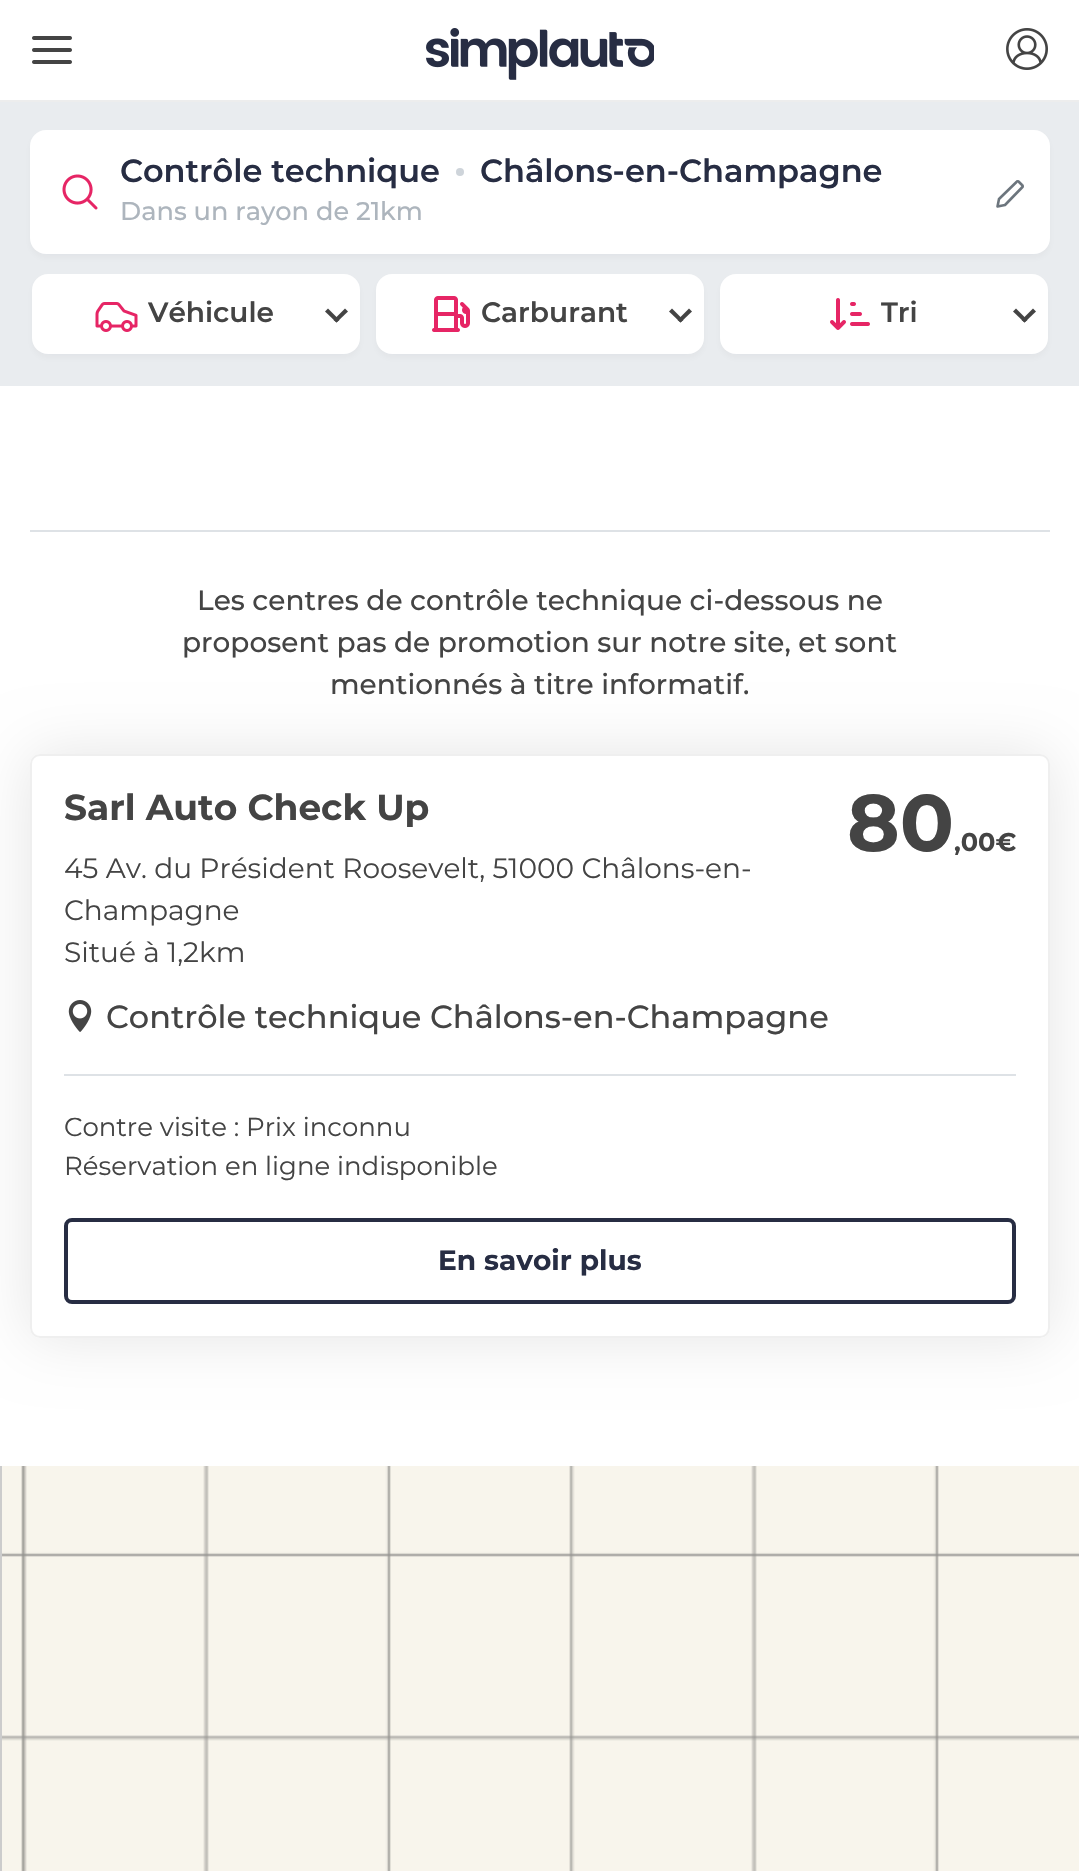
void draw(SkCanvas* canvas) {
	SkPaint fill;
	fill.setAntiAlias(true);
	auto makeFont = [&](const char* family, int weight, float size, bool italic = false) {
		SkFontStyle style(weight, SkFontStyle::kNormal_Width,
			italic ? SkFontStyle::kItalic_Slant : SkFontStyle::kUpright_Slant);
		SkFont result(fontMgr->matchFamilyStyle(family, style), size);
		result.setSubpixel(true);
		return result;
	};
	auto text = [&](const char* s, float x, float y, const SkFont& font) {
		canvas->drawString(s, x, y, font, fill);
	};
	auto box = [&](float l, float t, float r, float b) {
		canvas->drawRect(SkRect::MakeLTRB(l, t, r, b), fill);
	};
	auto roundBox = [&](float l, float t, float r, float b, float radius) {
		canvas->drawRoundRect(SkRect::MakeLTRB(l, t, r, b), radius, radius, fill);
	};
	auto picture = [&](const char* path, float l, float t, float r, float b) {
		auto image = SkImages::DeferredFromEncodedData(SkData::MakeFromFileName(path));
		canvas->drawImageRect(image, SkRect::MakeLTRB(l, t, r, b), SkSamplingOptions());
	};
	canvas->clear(0xFFFFFFFF);
	fill.setColor(0xFFEDEDED);
	box(0, 100, 1079, 102);
	picture("image0.png", 32, 36, 72, 64);
	picture("image1.png", 426, 28, 654, 80);
	picture("image2.png", 1006, 28, 1048, 70);
	fill.setColor(0xFFE9ECEF);
	box(0, 102, 1079, 386);
	fill.setColor(0x0D1A1B1F);
	fill.setMaskFilter(SkMaskFilter::MakeBlur(kNormal_SkBlurStyle, 4));
	canvas->drawRoundRect(SkRect::MakeLTRB(32, 136, 1048, 256), 14, 14, fill);
	fill.setMaskFilter(nullptr);
	fill.setColor(0xFFFFFFFF);
	roundBox(30, 130, 1050, 254, 16);
	picture("image3.png", 62, 174, 98, 210);
	fill.setColor(0xFFCED4DA);
	canvas->drawCircle(460, 172, 4, fill);
	fill.setStyle(SkPaint::kStroke_Style);
	fill.setStrokeWidth(2.6f);
	fill.setStrokeCap(SkPaint::kRound_Cap);
	fill.setStrokeJoin(SkPaint::kRound_Join);
	fill.setColor(0xFF6C757D);
	canvas->drawPath(SkPathBuilder().moveTo(997.5f, 206.5f).lineTo(1005, 205).lineTo(1022, 187.5f).cubicTo(1023, 187, 1023, 185.5f, 1022, 185).lineTo(1019, 182).cubicTo(1018.5f, 181, 1017, 181, 1016.5f, 182).lineTo(999, 199).close().detach(), fill);
	fill.setStyle(SkPaint::kFill_Style);
	fill.setColor(0x0D1A1B1F);
	fill.setMaskFilter(SkMaskFilter::MakeBlur(kNormal_SkBlurStyle, 4));
	canvas->drawRoundRect(SkRect::MakeLTRB(34, 280, 358, 356), 14, 14, fill);
	fill.setMaskFilter(nullptr);
	fill.setColor(0xFFFFFFFF);
	roundBox(32, 274, 360, 354, 16);
	picture("image4.png", 95, 302, 138, 332);
	fill.setColor(0xFF444444);
	canvas->drawPath(SkPathBuilder().moveTo(345, 308.5f).lineTo(348, 311.5f).lineTo(336.5f, 322.5f).lineTo(333.5f, 320).close().detach(), fill);
	canvas->drawPath(SkPathBuilder().moveTo(328, 308.5f).lineTo(339.5f, 320).lineTo(336.5f, 322.5f).lineTo(325, 311.5f).close().detach(), fill);
	fill.setColor(0x0D1A1B1F);
	fill.setMaskFilter(SkMaskFilter::MakeBlur(kNormal_SkBlurStyle, 4));
	canvas->drawRoundRect(SkRect::MakeLTRB(378, 280, 702, 356), 14, 14, fill);
	fill.setMaskFilter(nullptr);
	fill.setColor(0xFFFFFFFF);
	roundBox(376, 274, 704, 354, 16);
	picture("image5.png", 432, 296, 470, 332);
	fill.setColor(0xFF444444);
	canvas->drawPath(SkPathBuilder().moveTo(689, 308.5f).lineTo(692, 311.5f).lineTo(680.5f, 322.5f).lineTo(677.5f, 320).close().detach(), fill);
	canvas->drawPath(SkPathBuilder().moveTo(672, 308.5f).lineTo(683.5f, 320).lineTo(680.5f, 322.5f).lineTo(669, 311.5f).close().detach(), fill);
	fill.setColor(0x0D1A1B1F);
	fill.setMaskFilter(SkMaskFilter::MakeBlur(kNormal_SkBlurStyle, 4));
	canvas->drawRoundRect(SkRect::MakeLTRB(722, 280, 1046, 356), 14, 14, fill);
	fill.setMaskFilter(nullptr);
	fill.setColor(0xFFFFFFFF);
	roundBox(720, 274, 1048, 354, 16);
	picture("image6.png", 830, 298, 870, 330);
	fill.setColor(0xFF444444);
	canvas->drawPath(SkPathBuilder().moveTo(1033, 308.5f).lineTo(1036, 311.5f).lineTo(1024.5f, 322.5f).lineTo(1021.5f, 320).close().detach(), fill);
	canvas->drawPath(SkPathBuilder().moveTo(1016, 308.5f).lineTo(1027.5f, 320).lineTo(1024.5f, 322.5f).lineTo(1013, 311.5f).close().detach(), fill);
	fill.setColor(0xFFDEE2E6);
	box(30, 530, 1050, 532);
	canvas->save();
	canvas->clipPath(SkPathBuilder(SkPathFillType::kEvenOdd).moveTo(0, 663).lineTo(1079, 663).lineTo(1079, 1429).lineTo(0, 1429).close().moveTo(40, 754).lineTo(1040, 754).cubicTo(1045.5f, 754, 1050, 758.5f, 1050, 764).lineTo(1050, 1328).cubicTo(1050, 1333.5f, 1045.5f, 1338, 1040, 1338).lineTo(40, 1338).cubicTo(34.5f, 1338, 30, 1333.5f, 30, 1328).lineTo(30, 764).cubicTo(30, 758.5f, 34.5f, 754, 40, 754).close().detach(), true);
	fill.setColor(0x1A000000);
	fill.setMaskFilter(SkMaskFilter::MakeBlur(kNormal_SkBlurStyle, 30));
	canvas->drawRoundRect(SkRect::MakeLTRB(30, 754, 1050, 1338), 10, 10, fill);
	fill.setMaskFilter(nullptr);
	canvas->restore();
	fill.setStyle(SkPaint::kStroke_Style);
	fill.setStrokeWidth(2);
	fill.setStrokeCap(SkPaint::kButt_Cap);
	fill.setStrokeJoin(SkPaint::kMiter_Join);
	fill.setColor(0xFFEFEFEF);
	canvas->drawRoundRect(SkRect::MakeLTRB(31, 755, 1049, 1337), 9, 9, fill);
	picture("image7.png", 68, 1000, 92, 1032);
	fill.setStyle(SkPaint::kFill_Style);
	fill.setColor(0xFFDEE2E6);
	box(64, 1074, 1016, 1076);
	fill.setStyle(SkPaint::kStroke_Style);
	fill.setStrokeWidth(4);
	fill.setColor(0xFF272D43);
	canvas->drawRoundRect(SkRect::MakeLTRB(66, 1220, 1014, 1302), 6, 6, fill);
	fill.setStyle(SkPaint::kFill_Style);
	fill.setColor(0xFFCCCCCC);
	box(0, 1466, 2, 1871);
	picture("image8.png", 2, 1466, 1079, 1871);
	auto font1 = makeFont("Montserrat", 600, 32);
	fill.setColor(0xFF272D43);
	text("Contrôle technique", 120, 182, font1);
	text("Châlons-en-Champagne", 480, 182, font1);
	auto font2 = makeFont("Montserrat", 500, 25.6f);
	fill.setColor(0xFFADB5BD);
	text("Dans un rayon de 21km", 120, 220, font2);
	auto font3 = makeFont("Montserrat", 600, 28);
	fill.setColor(0xFF444444);
	text("Véhicule", 148, 322, font3);
	text("Carburant", 481, 322, font3);
	text("Tri", 881, 322, font3);
	auto font4 = makeFont("Montserrat", 500, 28);
	text("Les centres de contrôle technique ci-dessous ne", 197, 610, font4);
	text("proposent pas de promotion sur notre site, et sont", 182, 652, font4);
	text("mentionnés à titre informatif.", 330, 694, font4);
	auto font5 = makeFont("Montserrat", 700, 36);
	text("Sarl Auto Check Up", 64, 820, font5);
	auto font6 = makeFont("Montserrat", 400, 28);
	text("45 Av. du Président Roosevelt, 51000 Châlons-en-", 64, 878, font6);
	text("Champagne", 64, 920, font6);
	text("Situé à 1,2 km", 64, 962, font6);
	auto font7 = makeFont("Montserrat", 700, 80);
	text("80", 847, 851, font7);
	auto font8 = makeFont("Montserrat", 700, 25.6f);
	text(",00€", 954, 851, font8);
	auto font9 = makeFont("Montserrat", 500, 32);
	text("Contrôle technique Châlons-en-Champagne", 106, 1028, font9);
	auto font10 = makeFont("Montserrat", 400, 26);
	text("Contre visite : Prix inconnu", 64, 1136, font10);
	text("Réservation en ligne indisponible", 64, 1175, font10);
	auto font11 = makeFont("Montserrat", 700, 28);
	fill.setColor(0xFF272D43);
	text("En savoir plus", 438, 1270, font11);
}
